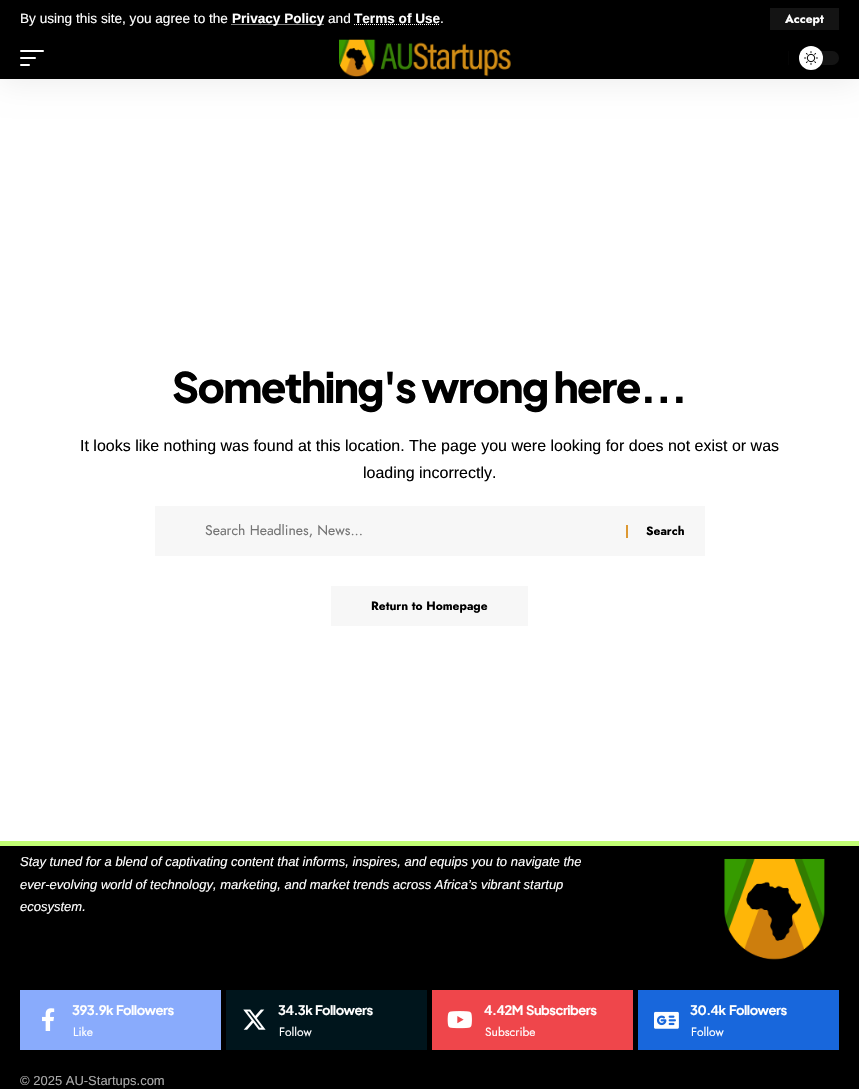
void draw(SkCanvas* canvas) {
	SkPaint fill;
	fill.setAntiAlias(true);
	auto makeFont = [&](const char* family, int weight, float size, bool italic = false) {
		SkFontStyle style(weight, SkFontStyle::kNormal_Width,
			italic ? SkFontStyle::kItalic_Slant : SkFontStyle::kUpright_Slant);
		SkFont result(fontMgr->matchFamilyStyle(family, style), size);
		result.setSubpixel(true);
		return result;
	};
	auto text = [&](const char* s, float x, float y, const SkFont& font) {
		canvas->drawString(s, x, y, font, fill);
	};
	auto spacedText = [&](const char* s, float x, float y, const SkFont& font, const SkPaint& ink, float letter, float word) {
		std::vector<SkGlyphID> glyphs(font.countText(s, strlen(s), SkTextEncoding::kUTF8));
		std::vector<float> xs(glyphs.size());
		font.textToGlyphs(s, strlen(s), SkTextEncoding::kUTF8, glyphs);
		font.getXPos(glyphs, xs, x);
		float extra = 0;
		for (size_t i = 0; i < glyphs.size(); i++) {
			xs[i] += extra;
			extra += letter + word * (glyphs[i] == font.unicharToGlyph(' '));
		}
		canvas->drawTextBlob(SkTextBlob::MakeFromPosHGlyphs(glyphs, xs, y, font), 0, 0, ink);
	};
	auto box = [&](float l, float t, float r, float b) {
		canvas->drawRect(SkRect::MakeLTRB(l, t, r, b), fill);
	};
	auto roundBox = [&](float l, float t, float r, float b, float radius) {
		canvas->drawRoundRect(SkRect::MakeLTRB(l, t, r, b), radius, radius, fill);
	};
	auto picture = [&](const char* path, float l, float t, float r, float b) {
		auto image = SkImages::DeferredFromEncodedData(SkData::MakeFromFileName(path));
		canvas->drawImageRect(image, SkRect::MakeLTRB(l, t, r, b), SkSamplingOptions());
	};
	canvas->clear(0xFFFFFFFF);
	fill.setColor(0xFF000000);
	box(0, 0, 859, 37);
	fill.setStyle(SkPaint::kStroke_Style);
	fill.setStrokeWidth(1);
	fill.setColor(0xFFFFFFFF);
	fill.setPathEffect(SkDashPathEffect::Make({{1, 1}}, 0));
	canvas->drawPath(SkPathBuilder().moveTo(231.5f, 24.5f).lineTo(324, 24.5f).detach(), fill);
	fill.setPathEffect(nullptr);
	fill.setPathEffect(SkDashPathEffect::Make({{1, 1}}, 0));
	canvas->drawPath(SkPathBuilder().moveTo(354, 24.5f).lineTo(440, 24.5f).detach(), fill);
	fill.setPathEffect(nullptr);
	fill.setStyle(SkPaint::kFill_Style);
	fill.setColor(0xFF141414);
	box(770, 8, 839, 30);
	fill.setColor(0x12000000);
	fill.setMaskFilter(SkMaskFilter::MakeBlur(kNormal_SkBlurStyle, 15));
	canvas->drawRect(SkRect::MakeLTRB(0, 41, 859, 83), fill);
	fill.setMaskFilter(nullptr);
	fill.setColor(0xFF000000);
	box(0, 37, 859, 79);
	fill.setColor(0xFFFFFFFF);
	roundBox(20, 50, 44, 52, 1);
	roundBox(20, 57, 36, 59, 1);
	roundBox(20, 64, 30, 66, 1);
	picture("image0.png", 339, 39, 511, 77);
	fill.setColor(0xFF050505);
	box(788, 51, 789, 65);
	fill.setColor(0xFF141414);
	roundBox(799, 51, 839, 65, 7);
	fill.setColor(0xFFFFFFFF);
	canvas->drawCircle(811, 58, 12, fill);
	picture("image1.png", 804, 51, 818, 65);
	fill.setColor(0xFFF7F7F7);
	box(155, 506, 705, 556);
	fill.setColor(0xFFDD9933);
	box(626, 525, 628, 538);
	fill.setColor(0xFFF7F7F7);
	box(331, 586, 528, 626);
	fill.setColor(0xFF000000);
	box(0, 846, 859, 1089);
	fill.setColor(0xFFC2FF74);
	box(0, 841, 859, 846);
	picture("image2.png", 724, 858, 825, 960);
	fill.setColor(0xFF89ABFC);
	box(20, 990, 221, 1050);
	picture("image3.png", 42, 1008, 55, 1031);
	fill.setColor(0xFF00151C);
	box(226, 990, 427, 1050);
	picture("image4.png", 243, 1009, 266, 1030);
	fill.setColor(0xFFEF464B);
	box(432, 990, 633, 1050);
	picture("image5.png", 447, 1011, 472, 1029);
	fill.setColor(0xFF1867DC);
	box(638, 990, 839, 1050);
	picture("image6.png", 654, 1011, 679, 1029);
	auto font1 = makeFont("Liberation Sans", 400, 13.6f);
	fill.setColor(0xFFFFFFFF);
	text("By using this site, you agree to the", 20, 23, font1);
	auto font2 = makeFont("Liberation Sans", 700, 13.6f);
	text("Privacy Policy", 232, 23, font2);
	text("and", 328, 23, font1);
	text("Terms of Use", 354, 23, font2);
	text(".", 440, 23, font1);
	auto font3 = makeFont("Jost", 700, 12);
	text("Accept", 785, 23, font3);
	auto font4 = makeFont("Plus Jakarta Sans", 800, 42);
	fill.setColor(0xFF000000);
	spacedText("Something's wrong here...", 172, 403, font4, fill, -1.6f, 0);
	auto font5 = makeFont("Liberation Sans", 400, 16);
	text("It looks like nothing was found at this location. The page you were looking for does not exist or was", 80, 451, font5);
	text("loading incorrectly.", 363, 478, font5);
	auto font6 = makeFont("Jost", 400, 14);
	fill.setColor(0xFF757575);
	text("Search Headlines, News...", 205, 535, font6);
	fill.setColor(0xFF000000);
	text("Search", 646, 535, font3);
	text("Return to Homepage", 371, 610, font3);
	auto font7 = makeFont("Liberation Sans", 400, 13, true);
	fill.setColor(0xFFFFFFFF);
	text("Stay tuned for a blend of captivating content that informs, inspires, and equips you to navigate the", 20, 866, font7);
	text("ever-evolving world of technology, marketing, and market trends across Africa’s vibrant startup", 20, 889, font7);
	text("ecosystem.", 20, 911, font7);
	auto font8 = makeFont("Plus Jakarta Sans", 700, 13);
	spacedText("393.9k", 72, 1015, font8, fill, -0.5f, 0);
	spacedText("Followers", 116, 1015, font8, fill, -0.5f, 0);
	auto font9 = makeFont("Jost", 400, 12);
	text("Like", 73, 1036, font9);
	spacedText("34.3k", 278, 1015, font8, fill, -0.5f, 0);
	spacedText("Followers", 315, 1015, font8, fill, -0.5f, 0);
	text("Follow", 279, 1036, font9);
	spacedText("4.42M", 484, 1015, font8, fill, -0.5f, 0);
	spacedText("Subscribers", 526, 1015, font8, fill, -0.5f, 0);
	text("Subscribe", 485, 1036, font9);
	spacedText("30.4k", 690, 1015, font8, fill, -0.5f, 0);
	spacedText("Followers", 729, 1015, font8, fill, -0.5f, 0);
	text("Follow", 691, 1036, font9);
	auto font10 = makeFont("Liberation Sans", 400, 13);
	fill.setColor(0xFFAAAAAA);
	text("© 2025 AU-Startups.com", 20, 1085, font10);
}
